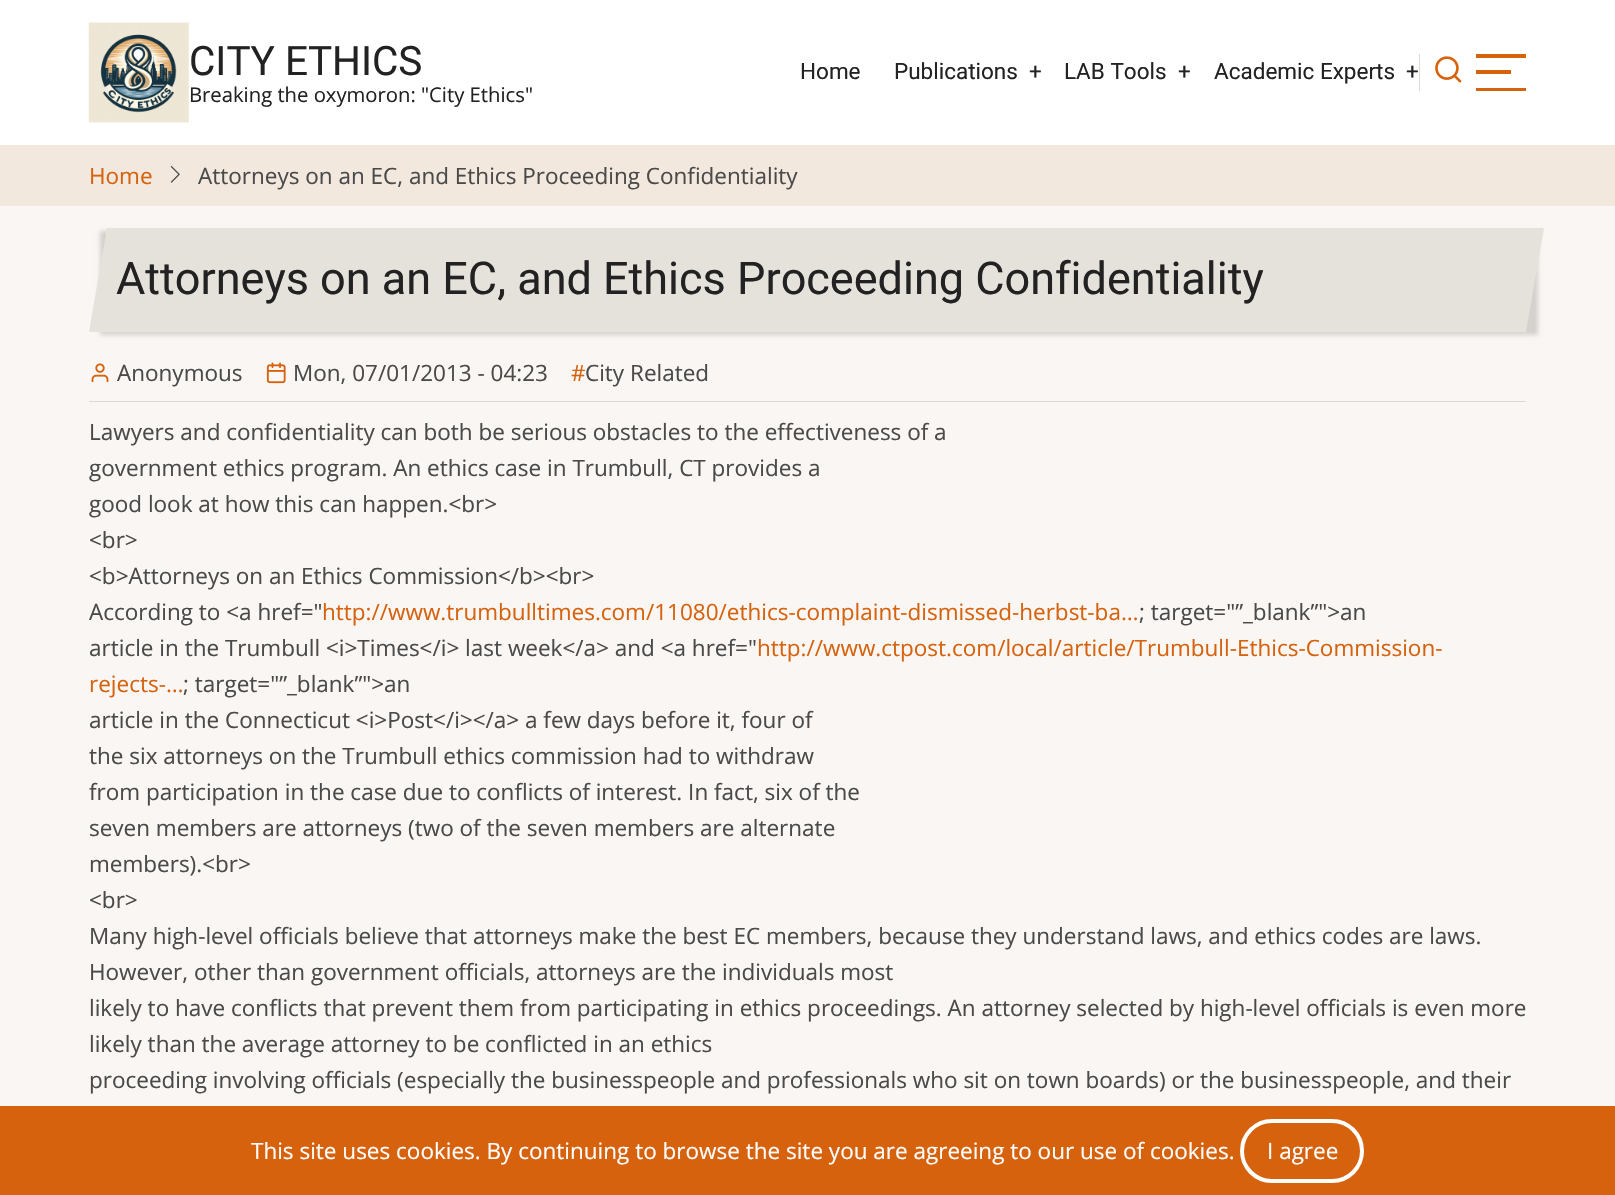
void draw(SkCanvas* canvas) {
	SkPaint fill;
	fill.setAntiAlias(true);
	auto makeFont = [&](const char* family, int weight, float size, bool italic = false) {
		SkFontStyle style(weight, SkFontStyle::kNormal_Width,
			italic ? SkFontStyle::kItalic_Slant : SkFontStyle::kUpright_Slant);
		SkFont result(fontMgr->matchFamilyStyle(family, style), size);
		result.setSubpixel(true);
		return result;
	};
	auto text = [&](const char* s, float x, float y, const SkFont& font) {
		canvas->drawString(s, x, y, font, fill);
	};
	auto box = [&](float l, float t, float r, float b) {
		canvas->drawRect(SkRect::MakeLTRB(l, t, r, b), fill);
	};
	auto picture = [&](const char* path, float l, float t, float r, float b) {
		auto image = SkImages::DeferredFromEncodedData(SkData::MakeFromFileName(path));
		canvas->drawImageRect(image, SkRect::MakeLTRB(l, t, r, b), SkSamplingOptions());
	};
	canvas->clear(0xFFF2E8DD);
	fill.setColor(0xFFFFFFFF);
	box(0, 0, 1615, 145);
	picture("image0.png", 88, 22, 189, 123);
	fill.setColor(0xFFDBDBD3);
	box(1419, 54, 1420, 91);
	picture("image1.png", 1435, 56, 1462, 83);
	fill.setColor(0xFFD6620E);
	box(1476, 54, 1526, 58);
	box(1476, 70, 1511, 74);
	box(1476, 88, 1526, 91);
	picture("image2.png", 170, 166, 180, 183);
	fill.setColor(0xFFF9F6F3);
	box(0, 206, 1615, 1106);
	fill.setColor(0x26000000);
	fill.setMaskFilter(SkMaskFilter::MakeBlur(kNormal_SkBlurStyle, 2));
	canvas->drawRect(SkRect::MakeLTRB(100, 231, 1538, 335), fill);
	fill.setMaskFilter(nullptr);
	fill.setColor(0xFFE5E2DC);
	canvas->drawPath(SkPathBuilder().moveTo(107, 228).lineTo(1544, 228).lineTo(1526, 332).lineTo(89, 332).close().detach(), fill);
	fill.setColor(0xFFDBDBD3);
	box(89, 401, 1526, 402);
	picture("image3.png", 91, 363, 109, 383);
	picture("image4.png", 266, 362, 286, 384);
	fill.setColor(0xFFD6620E);
	box(0, 1106, 1615, 1195);
	fill.setStyle(SkPaint::kStroke_Style);
	fill.setStrokeWidth(4);
	fill.setColor(0xFFFFFFFF);
	canvas->drawRoundRect(SkRect::MakeLTRB(1242, 1121, 1362, 1181), 30, 30, fill);
	auto font1 = makeFont("Roboto", 400, 40.5f);
	fill.setStyle(SkPaint::kFill_Style);
	fill.setColor(0xFF222222);
	text("CITY ETHICS", 189, 75, font1);
	auto font2 = makeFont("Open Sans", 400, 20.25f);
	text("Breaking the oxymoron: \"City Ethics\"", 189, 102, font2);
	auto font3 = makeFont("Roboto", 400, 22.5f);
	text("Home", 800, 79, font3);
	text("Publications", 894, 79, font3);
	text("+", 1029, 79, font3);
	text("LAB Tools", 1064, 79, font3);
	text("+", 1178, 79, font3);
	text("Academic Experts", 1214, 79, font3);
	text("+", 1406, 79, font3);
	auto font4 = makeFont("Open Sans", 400, 22.5f);
	fill.setColor(0xFFD6620E);
	text("Home", 89, 184, font4);
	fill.setColor(0xFF4A4A4A);
	text("Attorneys on an EC, and Ethics Proceeding Confidentiality", 198, 184, font4);
	auto font5 = makeFont("Roboto", 400, 45);
	fill.setColor(0xFF222222);
	text("Attorneys on an EC, and Ethics Proceeding Confidentiality", 116, 294, font5);
	fill.setColor(0xFF4A4A4A);
	text("Anonymous", 117, 381, font4);
	text("Mon, 07/01/2013 - 04:23", 293, 381, font4);
	fill.setColor(0xFFD6620E);
	text("#", 571, 381, font4);
	fill.setColor(0xFF4A4A4A);
	text("City Related", 585, 381, font4);
	text("Lawyers and confidentiality can both be serious obstacles to the effectiveness of a", 89, 440, font4);
	text("government ethics program. An ethics case in Trumbull, CT provides a", 89, 476, font4);
	text("good look at how this can happen.<br>", 89, 512, font4);
	text("<br>", 89, 548, font4);
	text("<b>Attorneys on an Ethics Commission</b><br>", 89, 584, font4);
	text("According to <a href=\"", 89, 620, font4);
	fill.setColor(0xFFD6620E);
	text("http://www.trumbulltimes.com/11080/ethics-complaint-dismissed-herbst-ba…", 322, 620, font4);
	fill.setColor(0xFF4A4A4A);
	text("; target=\"”_blank”\">an", 1139, 620, font4);
	text("article in the Trumbull <i>Times</i> last week</a> and <a href=\"", 89, 656, font4);
	fill.setColor(0xFFD6620E);
	text("http://www.ctpost.com/local/article/Trumbull-Ethics-Commission-", 757, 656, font4);
	text("rejects-…", 89, 692, font4);
	fill.setColor(0xFF4A4A4A);
	text("; target=\"”_blank”\">an", 183, 692, font4);
	text("article in the Connecticut <i>Post</i></a> a few days before it, four of", 89, 728, font4);
	text("the six attorneys on the Trumbull ethics commission had to withdraw", 89, 764, font4);
	text("from participation in the case due to conflicts of interest. In fact, six of the", 89, 800, font4);
	text("seven members are attorneys (two of the seven members are alternate", 89, 836, font4);
	text("members).<br>", 89, 872, font4);
	text("<br>", 89, 908, font4);
	text("Many high-level officials believe that attorneys make the best EC members, because they understand laws, and ethics codes are laws.", 89, 944, font4);
	text("However, other than government officials, attorneys are the individuals most", 89, 980, font4);
	text("likely to have conflicts that prevent them from participating in ethics proceedings. An attorney selected by high-level officials is even more", 89, 1016, font4);
	text("likely than the average attorney to be conflicted in an ethics", 89, 1052, font4);
	text("proceeding involving officials (especially the businesspeople and professionals who sit on town boards) or the businesspeople, and their", 89, 1088, font4);
	fill.setColor(0xFFFFFFFF);
	text("This site uses cookies. By continuing to browse the site you are agreeing to our use of cookies.", 251, 1159, font4);
	text("I agree", 1267, 1159, font4);
}
